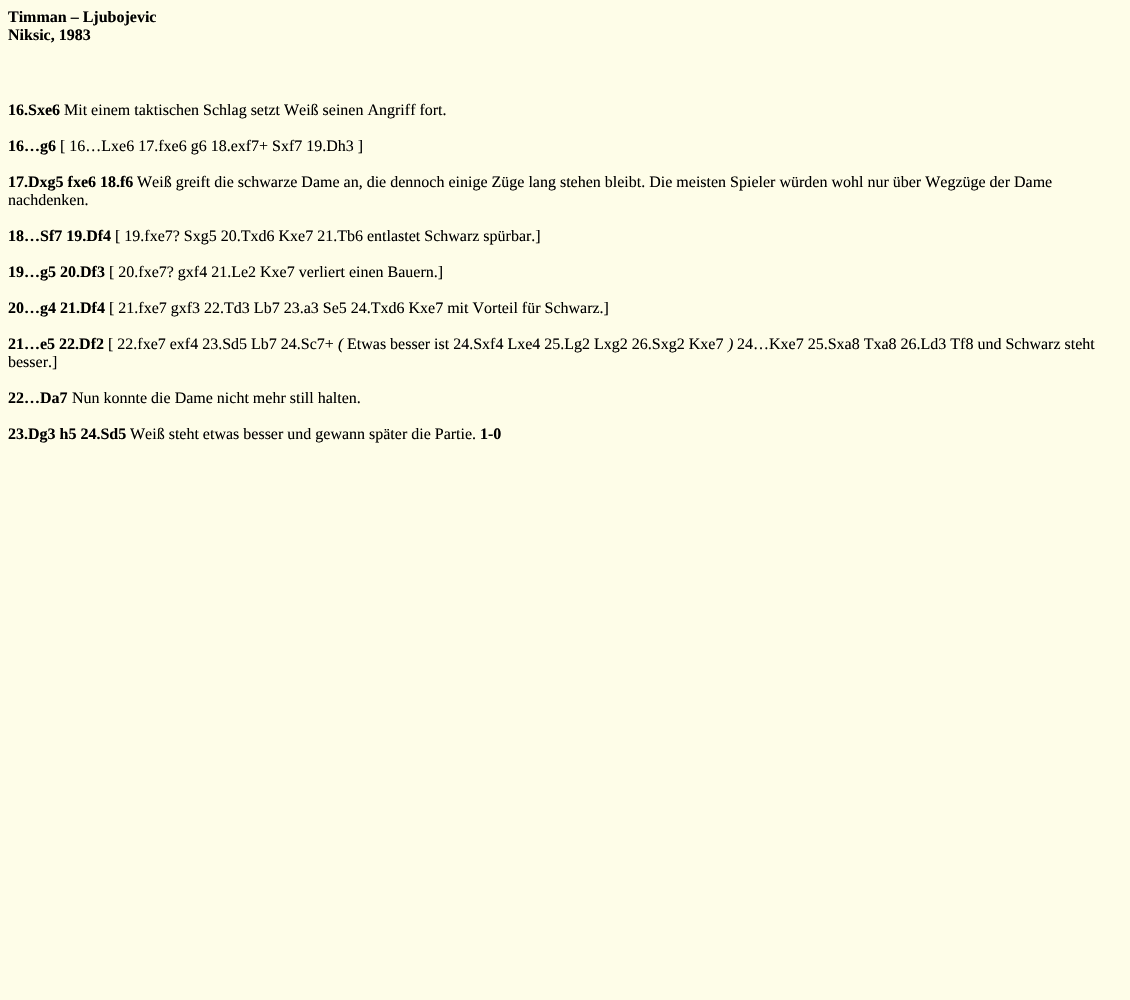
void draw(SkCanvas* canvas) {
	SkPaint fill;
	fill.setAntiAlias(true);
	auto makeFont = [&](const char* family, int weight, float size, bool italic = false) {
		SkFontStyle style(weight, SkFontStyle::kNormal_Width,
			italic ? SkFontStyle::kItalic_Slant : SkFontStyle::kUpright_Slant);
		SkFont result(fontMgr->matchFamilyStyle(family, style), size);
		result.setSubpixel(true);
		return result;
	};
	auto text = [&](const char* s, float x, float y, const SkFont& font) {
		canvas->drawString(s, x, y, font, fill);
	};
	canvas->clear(0xFFFEFDE8);
	auto font1 = makeFont("Liberation Serif", 700, 16);
	fill.setColor(0xFF000000);
	text("Timman – Ljubojevic", 8, 22, font1);
	text("Niksic, 1983", 8, 40, font1);
	text("16.Sxe6", 8, 115, font1);
	auto font2 = makeFont("Liberation Serif", 400, 16);
	text("Mit einem taktischen Schlag setzt Weiß seinen Angriff fort.", 64, 115, font2);
	text("16…g6", 8, 151, font1);
	text("[ 16…Lxe6 17.fxe6 g6 18.exf7+ Sxf7 19.Dh3 ]", 60, 151, font2);
	text("17.Dxg5 fxe6 18.f6", 8, 187, font1);
	text("Weiß greift die schwarze Dame an, die dennoch einige Züge lang stehen bleibt. Die meisten Spieler würden wohl nur über Wegzüge der Dame", 137, 187, font2);
	text("nachdenken.", 8, 205, font2);
	text("18…Sf7 19.Df4", 8, 241, font1);
	text("[ 19.fxe7? Sxg5 20.Txd6 Kxe7 21.Tb6 entlastet Schwarz spürbar.]", 115, 241, font2);
	text("19…g5 20.Df3", 8, 277, font1);
	text("[ 20.fxe7? gxf4 21.Le2 Kxe7 verliert einen Bauern.]", 109, 277, font2);
	text("20…g4 21.Df4", 8, 313, font1);
	text("[ 21.fxe7 gxf3 22.Td3 Lb7 23.a3 Se5 24.Txd6 Kxe7 mit Vorteil für Schwarz.]", 109, 313, font2);
	text("21…e5 22.Df2", 8, 349, font1);
	text("[ 22.fxe7 exf4 23.Sd5 Lb7 24.Sc7+", 108, 349, font2);
	auto font3 = makeFont("Liberation Serif", 400, 16, true);
	text("(", 338, 349, font3);
	text("Etwas besser ist 24.Sxf4 Lxe4 25.Lg2 Lxg2 26.Sxg2 Kxe7", 347, 349, font2);
	text(")", 728, 349, font3);
	text("24…Kxe7 25.Sxa8 Txa8 26.Ld3 Tf8 und Schwarz steht", 737, 349, font2);
	text("besser.]", 8, 367, font2);
	text("22…Da7", 8, 403, font1);
	text("Nun konnte die Dame nicht mehr still halten.", 72, 403, font2);
	text("23.Dg3 h5 24.Sd5", 8, 439, font1);
	text("Weiß steht etwas besser und gewann später die Partie.", 130, 439, font2);
	text("1-0", 480, 439, font1);
}
